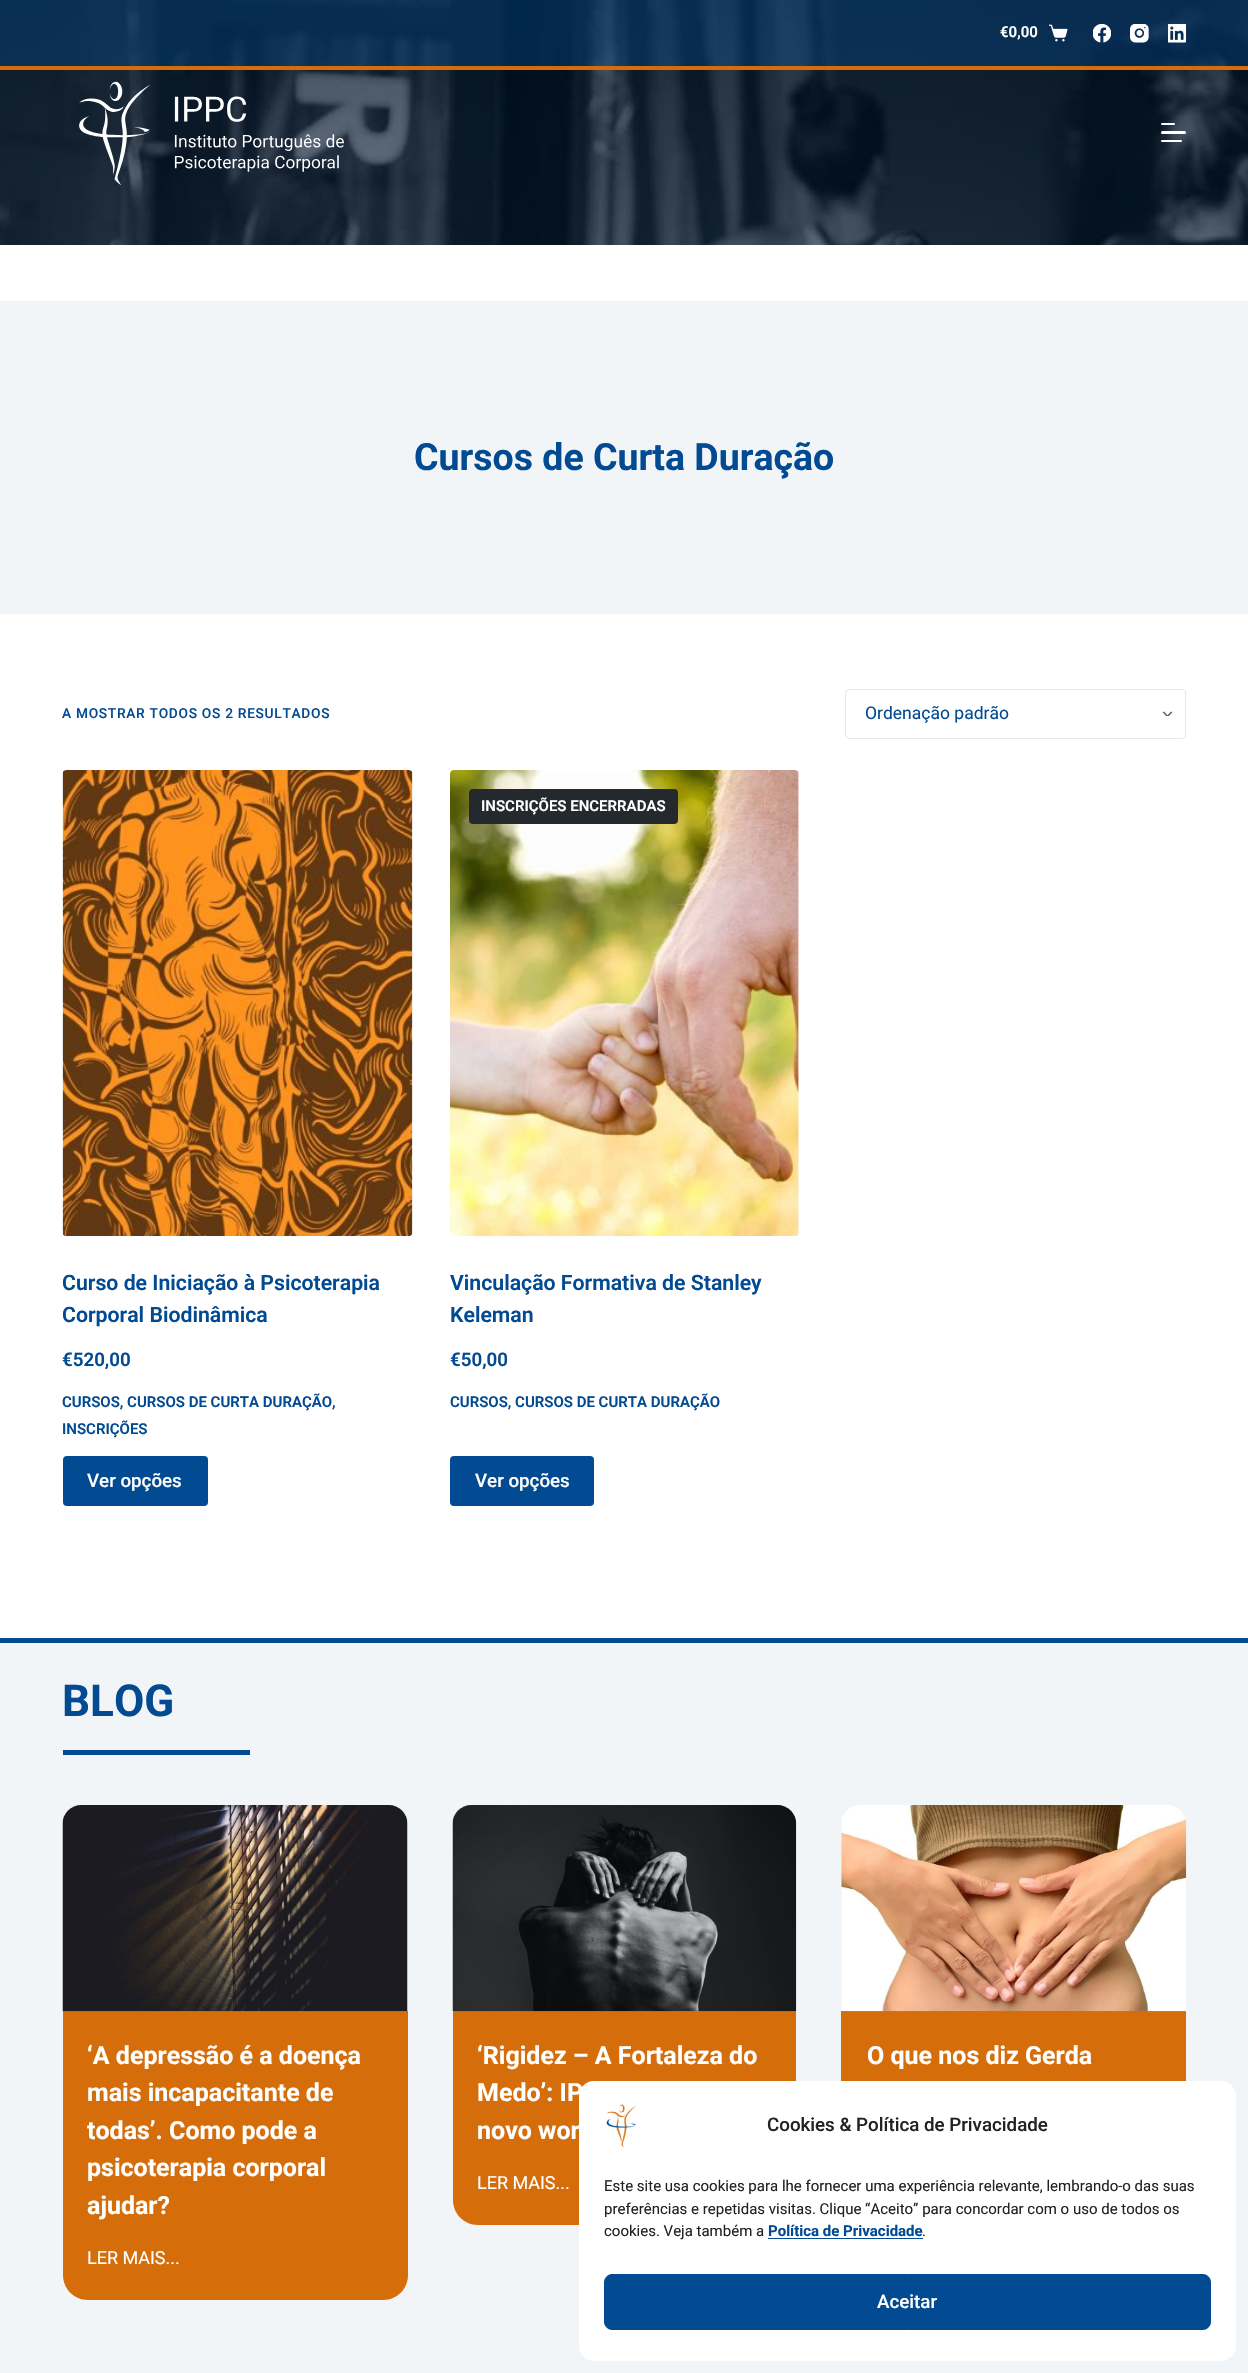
void draw(SkCanvas* canvas) {
	SkPaint fill;
	fill.setAntiAlias(true);
	auto makeFont = [&](const char* family, int weight, float size, bool italic = false) {
		SkFontStyle style(weight, SkFontStyle::kNormal_Width,
			italic ? SkFontStyle::kItalic_Slant : SkFontStyle::kUpright_Slant);
		SkFont result(fontMgr->matchFamilyStyle(family, style), size);
		result.setSubpixel(true);
		return result;
	};
	auto text = [&](const char* s, float x, float y, const SkFont& font) {
		canvas->drawString(s, x, y, font, fill);
	};
	auto spacedText = [&](const char* s, float x, float y, const SkFont& font, const SkPaint& ink, float letter, float word) {
		std::vector<SkGlyphID> glyphs(font.countText(s, strlen(s), SkTextEncoding::kUTF8));
		std::vector<float> xs(glyphs.size());
		font.textToGlyphs(s, strlen(s), SkTextEncoding::kUTF8, glyphs);
		font.getXPos(glyphs, xs, x);
		float extra = 0;
		for (size_t i = 0; i < glyphs.size(); i++) {
			xs[i] += extra;
			extra += letter + word * (glyphs[i] == font.unicharToGlyph(' '));
		}
		canvas->drawTextBlob(SkTextBlob::MakeFromPosHGlyphs(glyphs, xs, y, font), 0, 0, ink);
	};
	auto box = [&](float l, float t, float r, float b) {
		canvas->drawRect(SkRect::MakeLTRB(l, t, r, b), fill);
	};
	auto roundBox = [&](float l, float t, float r, float b, float radius) {
		canvas->drawRoundRect(SkRect::MakeLTRB(l, t, r, b), radius, radius, fill);
	};
	auto picture = [&](const char* path, float l, float t, float r, float b) {
		auto image = SkImages::DeferredFromEncodedData(SkData::MakeFromFileName(path));
		canvas->drawImageRect(image, SkRect::MakeLTRB(l, t, r, b), SkSamplingOptions());
	};
	canvas->clear(0xFFFFFFFF);
	picture("image0.png", 0, 0, 1248, 245);
	fill.setColor(0x63024A92);
	box(0, 0, 1248, 66);
	fill.setColor(0xFFD56D0A);
	box(0, 66, 1248, 70);
	picture("image1.png", 1049, 24, 1068, 42);
	picture("image2.png", 1093, 24, 1111, 43);
	picture("image3.png", 1130, 24, 1149, 43);
	picture("image4.png", 1168, 24, 1186, 43);
	picture("image5.png", 79, 81, 344, 186);
	fill.setColor(0xFFFFFFFF);
	roundBox(1161, 123, 1175, 125, 1);
	roundBox(1161, 131, 1186, 134, 1.5f);
	roundBox(1161, 140, 1182, 142, 1);
	fill.setColor(0xFFF2F5F7);
	box(0, 301, 1248, 614);
	picture("image6.png", 1163, 711, 1173, 716);
	fill.setStyle(SkPaint::kStroke_Style);
	fill.setStrokeWidth(1);
	fill.setColor(0xFFE1E8ED);
	canvas->drawRoundRect(SkRect::MakeLTRB(845.5f, 689.5f, 1185.5f, 738.5f), 3.5f, 3.5f, fill);
	picture("image7.png", 62, 770, 413, 1236);
	fill.setStyle(SkPaint::kFill_Style);
	fill.setColor(0xFF024A92);
	roundBox(63, 1456, 208, 1506, 4);
	picture("image8.png", 450, 770, 799, 1236);
	fill.setColor(0xFF24292E);
	roundBox(469, 789, 678, 824, 4);
	fill.setColor(0xFF024A92);
	roundBox(450, 1456, 594, 1506, 4);
	fill.setColor(0xFFF2F5F7);
	box(0, 1643, 1248, 2373);
	fill.setColor(0xFF024A92);
	box(0, 1638, 1248, 1643);
	box(63, 1750, 250, 1755);
	fill.setColor(0xFFD56D0A);
	box(63, 2011, 408, 2224);
	picture("image9.png", 62, 1805, 408, 2012);
	canvas->drawPath(SkPathBuilder().moveTo(63, 2224).lineTo(408, 2224).lineTo(408, 2275).cubicTo(408, 2289, 397, 2300, 383, 2300).lineTo(88, 2300).cubicTo(74, 2300, 63, 2289, 63, 2275).close().detach(), fill);
	box(453, 2011, 796, 2149);
	picture("image10.png", 452, 1805, 797, 2012);
	canvas->drawPath(SkPathBuilder().moveTo(453, 2149).lineTo(796, 2149).lineTo(796, 2200).cubicTo(796, 2214, 785, 2225, 771, 2225).lineTo(478, 2225).cubicTo(464, 2225, 453, 2214, 453, 2200).close().detach(), fill);
	box(841, 2011, 1186, 2081);
	picture("image11.png", 841, 1805, 1187, 2012);
	fill.setColor(0xFFFFFFFF);
	roundBox(579, 2081, 1236, 2361, 15);
	picture("image12.png", 606, 2104, 636, 2148);
	fill.setColor(0xFF024A92);
	box(768, 2238, 923, 2239);
	canvas->drawRoundRect(SkRect::MakeLTRB(604.5f, 2274.5f, 1210.5f, 2329.5f), 7.5f, 7.5f, fill);
	fill.setStyle(SkPaint::kStroke_Style);
	canvas->drawRoundRect(SkRect::MakeLTRB(604.5f, 2274.5f, 1210.5f, 2329.5f), 7.5f, 7.5f, fill);
	auto font1 = makeFont("Roboto", 600, 15);
	fill.setStyle(SkPaint::kFill_Style);
	fill.setColor(0xFFFFFFFF);
	text("€0,00", 1000, 37, font1);
	auto font2 = makeFont("Roboto", 700, 37.5f);
	fill.setColor(0xFF024A92);
	text("Cursos de Curta Duração", 414, 470, font2);
	auto font3 = makeFont("Roboto", 500, 13.75f);
	spacedText("A MOSTRAR TODOS OS 2 RESULTADOS", 62, 718, font3, fill, 0.7f, 0);
	auto font4 = makeFont("Roboto", 400, 17.5f);
	text("Ordenação padrão", 865, 719, font4);
	auto font5 = makeFont("Roboto", 600, 21.25f);
	text("Curso de Iniciação à Psicoterapia", 62, 1290, font5);
	text("Corporal Biodinâmica", 62, 1322, font5);
	auto font6 = makeFont("Roboto", 600, 18.75f);
	text("€520,00", 62, 1366, font6);
	text("CURSOS, CURSOS DE CURTA DURAÇÃO,", 62, 1407, font1);
	text("INSCRIÇÕES", 62, 1434, font1);
	auto font7 = makeFont("Roboto", 500, 18.75f);
	fill.setColor(0xFFFFFFFF);
	text("Ver opções", 87, 1487, font7);
	text("INSCRIÇÕES ENCERRADAS", 481, 811, font1);
	fill.setColor(0xFF024A92);
	text("Vinculação Formativa de Stanley", 450, 1290, font5);
	text("Keleman", 450, 1322, font5);
	text("€50,00", 450, 1366, font6);
	text("CURSOS, CURSOS DE CURTA DURAÇÃO", 450, 1407, font1);
	fill.setColor(0xFFFFFFFF);
	text("Ver opções", 475, 1487, font7);
	auto font8 = makeFont("Roboto", 700, 44);
	fill.setColor(0xFF024A92);
	text("BLOG", 62, 1716, font8);
	auto font9 = makeFont("Roboto", 700, 25);
	fill.setColor(0xFFFFFFFF);
	text("‘A depressão é a doença", 87, 2064, font9);
	text("mais incapacitante de", 87, 2101, font9);
	text("todas’. Como pode a", 87, 2139, font9);
	text("psicoterapia corporal", 87, 2176, font9);
	text("ajudar?", 87, 2214, font9);
	auto font10 = makeFont("Roboto", 400, 18);
	text("LER MAIS...", 87, 2264, font10);
	text("‘Rigidez – A Fortaleza do", 477, 2064, font9);
	text("Medo’: IP", 477, 2101, font9);
	text("novo wor", 477, 2139, font9);
	text("LER MAIS...", 477, 2189, font10);
	text("O que nos diz Gerda", 867, 2064, font9);
	fill.setColor(0xFF222222);
	text("Cookies & Política de Privacidade", 767, 2131, font7);
	auto font11 = makeFont("Roboto", 400, 15);
	text("Este site usa cookies para lhe fornecer uma experiência relevante, lembrando-o das suas", 604, 2191, font11);
	text("preferências e repetidas visitas. Clique “Aceito” para concordar com o uso de todos os", 604, 2214, font11);
	text("cookies. Veja também a", 604, 2236, font11);
	auto font12 = makeFont("Roboto", 700, 15);
	fill.setColor(0xFF024A92);
	text("Política de Privacidade", 768, 2236, font12);
	fill.setColor(0xFF222222);
	text(".", 922, 2236, font11);
	fill.setColor(0xFFFFFFFF);
	text("Aceitar", 877, 2308, font7);
}
